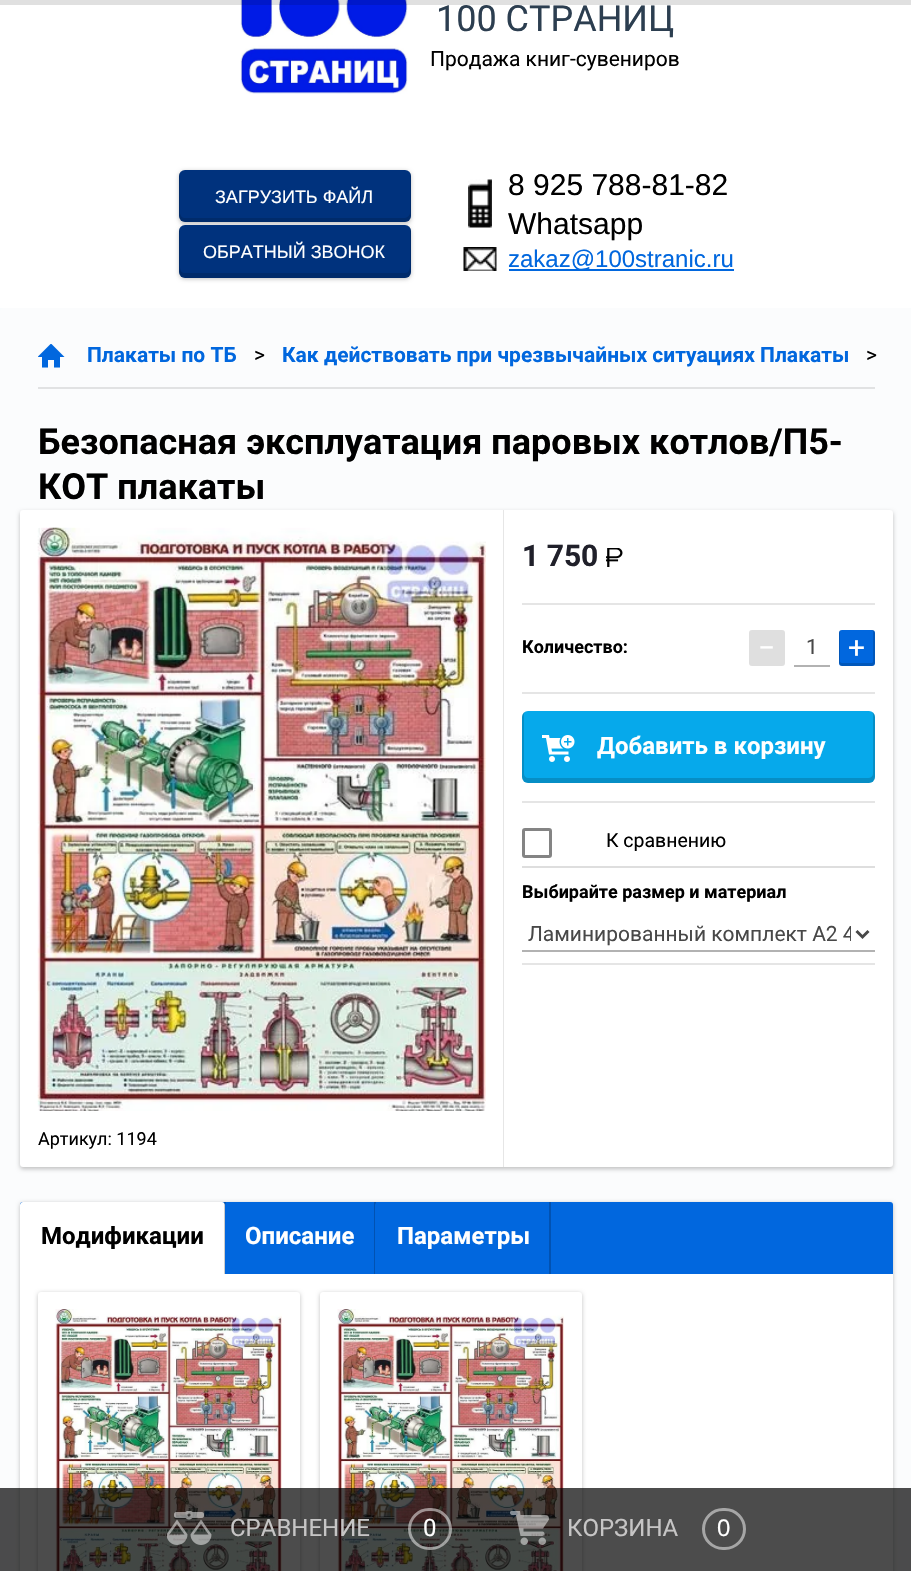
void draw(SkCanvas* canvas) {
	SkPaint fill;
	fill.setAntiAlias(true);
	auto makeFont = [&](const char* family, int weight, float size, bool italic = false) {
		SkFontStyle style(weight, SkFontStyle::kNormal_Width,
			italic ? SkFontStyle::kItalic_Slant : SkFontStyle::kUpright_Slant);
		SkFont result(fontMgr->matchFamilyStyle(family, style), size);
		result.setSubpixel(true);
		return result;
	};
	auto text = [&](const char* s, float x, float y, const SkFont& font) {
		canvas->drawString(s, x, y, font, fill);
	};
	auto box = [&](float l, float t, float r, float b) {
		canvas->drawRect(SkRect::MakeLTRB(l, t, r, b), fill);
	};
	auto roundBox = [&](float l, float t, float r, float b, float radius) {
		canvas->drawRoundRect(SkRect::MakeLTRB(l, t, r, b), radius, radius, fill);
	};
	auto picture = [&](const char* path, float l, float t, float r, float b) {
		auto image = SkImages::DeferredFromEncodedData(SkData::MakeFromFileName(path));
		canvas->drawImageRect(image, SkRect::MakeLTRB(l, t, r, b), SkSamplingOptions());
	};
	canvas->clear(0xFFF8FDFF);
	fill.setColor(0xFFFFFFFF);
	box(0, 0, 911, 308);
	picture("image0.png", 240, 0, 408, 94);
	fill.setColor(0x1F000000);
	box(0, 0, 911, 5);
	fill.setColor(0x3D000000);
	fill.setMaskFilter(SkMaskFilter::MakeBlur(kNormal_SkBlurStyle, 2));
	canvas->drawRoundRect(SkRect::MakeLTRB(179, 171, 411, 224), 6, 6, fill);
	fill.setMaskFilter(nullptr);
	fill.setColor(0xFF00327D);
	roundBox(179, 170, 411, 222, 6);
	fill.setColor(0x24000000);
	canvas->drawPath(SkPathBuilder().moveTo(180, 173).cubicTo(179, 174, 179, 175, 179, 176).lineTo(179, 216).cubicTo(179, 219, 182, 222, 185, 222).lineTo(405, 222).cubicTo(408, 222, 411, 219, 411, 216).lineTo(411, 176).cubicTo(411, 175, 411, 174, 410, 173).lineTo(410, 213).cubicTo(410, 215, 407, 218, 405, 218).lineTo(184, 218).cubicTo(182, 218, 180, 215, 180, 213).close().detach(), fill);
	fill.setColor(0x3D000000);
	fill.setMaskFilter(SkMaskFilter::MakeBlur(kNormal_SkBlurStyle, 2));
	canvas->drawRoundRect(SkRect::MakeLTRB(179, 227, 411, 279), 6, 6, fill);
	fill.setMaskFilter(nullptr);
	fill.setColor(0xFF00327D);
	roundBox(179, 225, 411, 278, 6);
	fill.setColor(0x24000000);
	canvas->drawPath(SkPathBuilder().moveTo(180, 228).cubicTo(179, 229, 179, 230, 179, 231).lineTo(179, 272).cubicTo(179, 275, 182, 278, 185, 278).lineTo(405, 278).cubicTo(408, 278, 411, 275, 411, 272).lineTo(411, 231).cubicTo(411, 230, 411, 229, 410, 228).lineTo(410, 261).cubicTo(410, 265, 411, 273, 405, 273).lineTo(184, 273).cubicTo(179, 273, 180, 264, 180, 261).close().detach(), fill);
	picture("image1.png", 468, 179, 492, 228);
	picture("image2.png", 463, 247, 497, 271);
	fill.setColor(0xFF0167DE);
	box(509, 269, 734, 271);
	fill.setColor(0xFFFBFCFD);
	roundBox(0, 308, 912, 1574, 3);
	fill.setColor(0xFFE1E2E3);
	box(38, 387, 875, 389);
	picture("image3.png", 38, 344, 65, 368);
	fill.setColor(0x3D000000);
	fill.setMaskFilter(SkMaskFilter::MakeBlur(kNormal_SkBlurStyle, 2));
	canvas->drawRoundRect(SkRect::MakeLTRB(20, 512, 893, 1169), 3, 3, fill);
	fill.setMaskFilter(nullptr);
	fill.setColor(0xFFFFFFFF);
	roundBox(20, 510, 893, 1167, 3);
	fill.setColor(0xFFE6E6E6);
	box(503, 510, 504, 1167);
	picture("image4.png", 606, 548, 623, 567);
	fill.setColor(0xFFE5E5E5);
	box(522, 603, 875, 605);
	box(522, 692, 875, 694);
	fill.setColor(0xFFDFDFDF);
	roundBox(749, 630, 785, 666, 3);
	fill.setColor(0xFFB2B2B2);
	box(794, 665, 830, 667);
	fill.setColor(0xFF0167DE);
	roundBox(839, 630, 875, 666, 3);
	fill.setColor(0x29000000);
	canvas->drawPath(SkPathBuilder().moveTo(842, 630).cubicTo(840.5f, 630, 839, 631.5f, 839, 633).lineTo(839, 663).cubicTo(839, 664.5f, 840.5f, 666, 842, 666).lineTo(872, 666).cubicTo(873.5f, 666, 875, 664.5f, 875, 663).lineTo(875, 633).cubicTo(875, 631.5f, 873.5f, 630, 872, 630).lineTo(873, 631.5f).lineTo(873, 662).lineTo(872, 663).lineTo(841.5f, 663).lineTo(840, 662).lineTo(840, 632).cubicTo(840, 631, 841, 630, 842, 630).close().detach(), fill);
	fill.setColor(0xFF06A9EB);
	roundBox(522, 711, 875, 783, 6);
	fill.setColor(0x29000000);
	canvas->drawPath(SkPathBuilder().moveTo(525, 712).cubicTo(523, 713, 522, 715, 522, 717).lineTo(522, 777).cubicTo(522, 780, 525, 783, 528, 783).lineTo(869, 783).cubicTo(872, 783, 875, 780, 875, 777).lineTo(875, 717).cubicTo(875, 715, 874, 713, 872, 712).lineTo(873, 714).lineTo(873, 774).cubicTo(873, 776, 871, 778, 868, 778).lineTo(528, 778).cubicTo(526, 778, 524, 776, 524, 774).lineTo(524, 714).close().detach(), fill);
	picture("image5.png", 542, 735, 575, 762);
	fill.setColor(0xFFE5E5E5);
	box(522, 801, 875, 803);
	fill.setColor(0xFFDEDEDE);
	box(522, 866, 875, 868);
	fill.setStyle(SkPaint::kStroke_Style);
	fill.setStrokeWidth(3);
	fill.setColor(0xFF848484);
	canvas->drawRoundRect(SkRect::MakeLTRB(523.5f, 829.5f, 550.5f, 856.5f), 1.5f, 1.5f, fill);
	fill.setStyle(SkPaint::kFill_Style);
	fill.setColor(0xFFE5E5E5);
	box(522, 963, 875, 965);
	fill.setColor(0xFFB2B2B2);
	box(522, 950, 875, 952);
	fill.setStyle(SkPaint::kStroke_Style);
	fill.setColor(0xFF484848);
	canvas->drawPath(SkPathBuilder().moveTo(856.5f, 931).lineTo(862.5f, 937).lineTo(868.5f, 931).detach(), fill);
	picture("image6.png", 37, 527, 486, 1111);
	fill.setStyle(SkPaint::kFill_Style);
	fill.setColor(0x3D000000);
	fill.setMaskFilter(SkMaskFilter::MakeBlur(kNormal_SkBlurStyle, 2));
	canvas->drawRoundRect(SkRect::MakeLTRB(20, 1203, 893, 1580), 3, 3, fill);
	fill.setMaskFilter(nullptr);
	fill.setColor(0xFF0167DE);
	roundBox(20, 1202, 893, 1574, 3);
	fill.setColor(0xFFFFFFFF);
	canvas->drawPath(SkPathBuilder().moveTo(23, 1202).lineTo(222, 1202).cubicTo(223.5f, 1202, 225, 1203.5f, 225, 1205).lineTo(225, 1274).lineTo(20, 1274).lineTo(20, 1205).cubicTo(20, 1203.5f, 21.5f, 1202, 23, 1202).close().detach(), fill);
	fill.setColor(0x33000000);
	box(224, 1202, 226, 1274);
	fill.setColor(0xFF0167DE);
	canvas->drawPath(SkPathBuilder().moveTo(228, 1202).lineTo(372, 1202).cubicTo(373.5f, 1202, 375, 1203.5f, 375, 1205).lineTo(375, 1274).lineTo(225, 1274).lineTo(225, 1205).cubicTo(225, 1203.5f, 226.5f, 1202, 228, 1202).close().detach(), fill);
	fill.setColor(0xFF0152B2);
	box(374, 1202, 376, 1274);
	fill.setColor(0xFF0167DE);
	canvas->drawPath(SkPathBuilder().moveTo(378, 1202).lineTo(548, 1202).cubicTo(549.5f, 1202, 551, 1203.5f, 551, 1205).lineTo(551, 1274).lineTo(375, 1274).lineTo(375, 1205).cubicTo(375, 1203.5f, 376.5f, 1202, 378, 1202).close().detach(), fill);
	fill.setColor(0xFF0152B2);
	box(549, 1202, 551, 1274);
	fill.setColor(0xFFFFFFFF);
	box(20, 1274, 893, 1571);
	fill.setColor(0x3D000000);
	fill.setMaskFilter(SkMaskFilter::MakeBlur(kNormal_SkBlurStyle, 2));
	canvas->drawRoundRect(SkRect::MakeLTRB(38, 1293, 300, 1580), 3, 3, fill);
	fill.setMaskFilter(nullptr);
	fill.setColor(0xFFFFFFFF);
	roundBox(38, 1292, 300, 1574, 3);
	picture("image7.png", 55, 1309, 282, 1571);
	fill.setColor(0x3D000000);
	fill.setMaskFilter(SkMaskFilter::MakeBlur(kNormal_SkBlurStyle, 2));
	canvas->drawRoundRect(SkRect::MakeLTRB(320, 1293, 582, 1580), 3, 3, fill);
	fill.setMaskFilter(nullptr);
	fill.setColor(0xFFFFFFFF);
	roundBox(320, 1292, 582, 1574, 3);
	picture("image7.png", 337, 1309, 564, 1571);
	fill.setColor(0xB3000000);
	box(0, 1488, 911, 1571);
	picture("image8.png", 167, 1511, 212, 1545);
	fill.setStyle(SkPaint::kStroke_Style);
	fill.setColor(0x80FFFFFF);
	canvas->drawRoundRect(SkRect::MakeLTRB(409.5f, 1509.5f, 450.5f, 1548.5f), 19.5f, 19.5f, fill);
	picture("image9.png", 510, 1511, 549, 1545);
	fill.setColor(0xFFA6A6A6);
	canvas->drawRoundRect(SkRect::MakeLTRB(703.5f, 1509.5f, 744.5f, 1548.5f), 19.5f, 19.5f, fill);
	auto font1 = makeFont("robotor", 400, 36);
	fill.setStyle(SkPaint::kFill_Style);
	fill.setColor(0xFF2C3E50);
	text("100 СТРАНИЦ", 436, 31, font1);
	auto font2 = makeFont("robotor", 400, 21);
	fill.setColor(0xFF000000);
	text("Продажа книг-сувениров", 430, 66, font2);
	auto font3 = makeFont("Liberation Sans", 400, 18);
	fill.setColor(0xFFFFFFFF);
	text("ЗАГРУЗИТЬ ФАЙЛ", 215, 203, font3);
	text("ОБРАТНЫЙ ЗВОНОК", 203, 258, font3);
	auto font4 = makeFont("Liberation Sans", 400, 30);
	fill.setColor(0xFF000000);
	text("8 925 788-81-82", 508, 195, font4);
	text("Whatsapp", 508, 234, font4);
	auto font5 = makeFont("Liberation Sans", 400, 24);
	fill.setColor(0xFF0167DE);
	text("zakaz@100stranic.ru", 508, 267, font5);
	auto font6 = makeFont("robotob", 700, 21);
	text("Плакаты по ТБ", 87, 362, font6);
	fill.setColor(0xFF000000);
	text(">", 254, 362, font2);
	fill.setColor(0xFF0167DE);
	text("Как действовать при чрезвычайных ситуациях Плакаты", 282, 362, font6);
	fill.setColor(0xFF000000);
	text(">", 866, 362, font2);
	auto font7 = makeFont("robotob", 700, 36);
	text("Безопасная эксплуатация паровых котлов/П5-", 38, 454, font7);
	text("КОТ плакаты", 38, 499, font7);
	auto font8 = makeFont("robotob", 700, 30);
	fill.setColor(0xFF20202A);
	text("1 750", 522, 566, font8);
	auto font9 = makeFont("robotob", 700, 18);
	fill.setColor(0xFF000000);
	text("Количество:", 522, 653, font9);
	auto font10 = makeFont("robotor", 400, 30);
	fill.setColor(0xFFFFFFFF);
	text("−", 758, 658, font10);
	fill.setColor(0xFF484848);
	text("1", 806, 654, font2);
	fill.setColor(0xFFFFFFFF);
	text("+", 848, 658, font10);
	auto font11 = makeFont("robotob", 700, 24);
	text("Добавить в корзину", 597, 754, font11);
	auto font12 = makeFont("robotor", 400, 19.5f);
	fill.setColor(0xFF000000);
	text("К сравнению", 606, 847, font12);
	text("Выбирайте размер и материал", 522, 898, font9);
	canvas->save();
	canvas->clipRect(SkRect::MakeLTRB(528, 920, 851, 947));
	fill.setColor(0xFF484848);
	text("Ламинированный комплект А2 4", 528, 941, font2);
	canvas->restore();
	auto font13 = makeFont("robotor", 400, 18);
	fill.setColor(0xFF000000);
	text("Артикул: 1194", 38, 1145, font13);
	text("Модификации", 41, 1244, font11);
	fill.setColor(0xFFFFFFFF);
	text("Описание", 245, 1244, font11);
	text("Параметры", 397, 1244, font11);
	auto font14 = makeFont("robotor", 400, 24);
	fill.setColor(0xFFC6C5C5);
	text("СРАВНЕНИЕ", 230, 1536, font14);
	fill.setColor(0xFFFFFFFF);
	text("0", 423, 1536, font14);
	fill.setColor(0xFFC6C5C5);
	text("КОРЗИНА", 567, 1536, font14);
	fill.setColor(0xFFFFFFFF);
	text("0", 717, 1536, font5);
}
